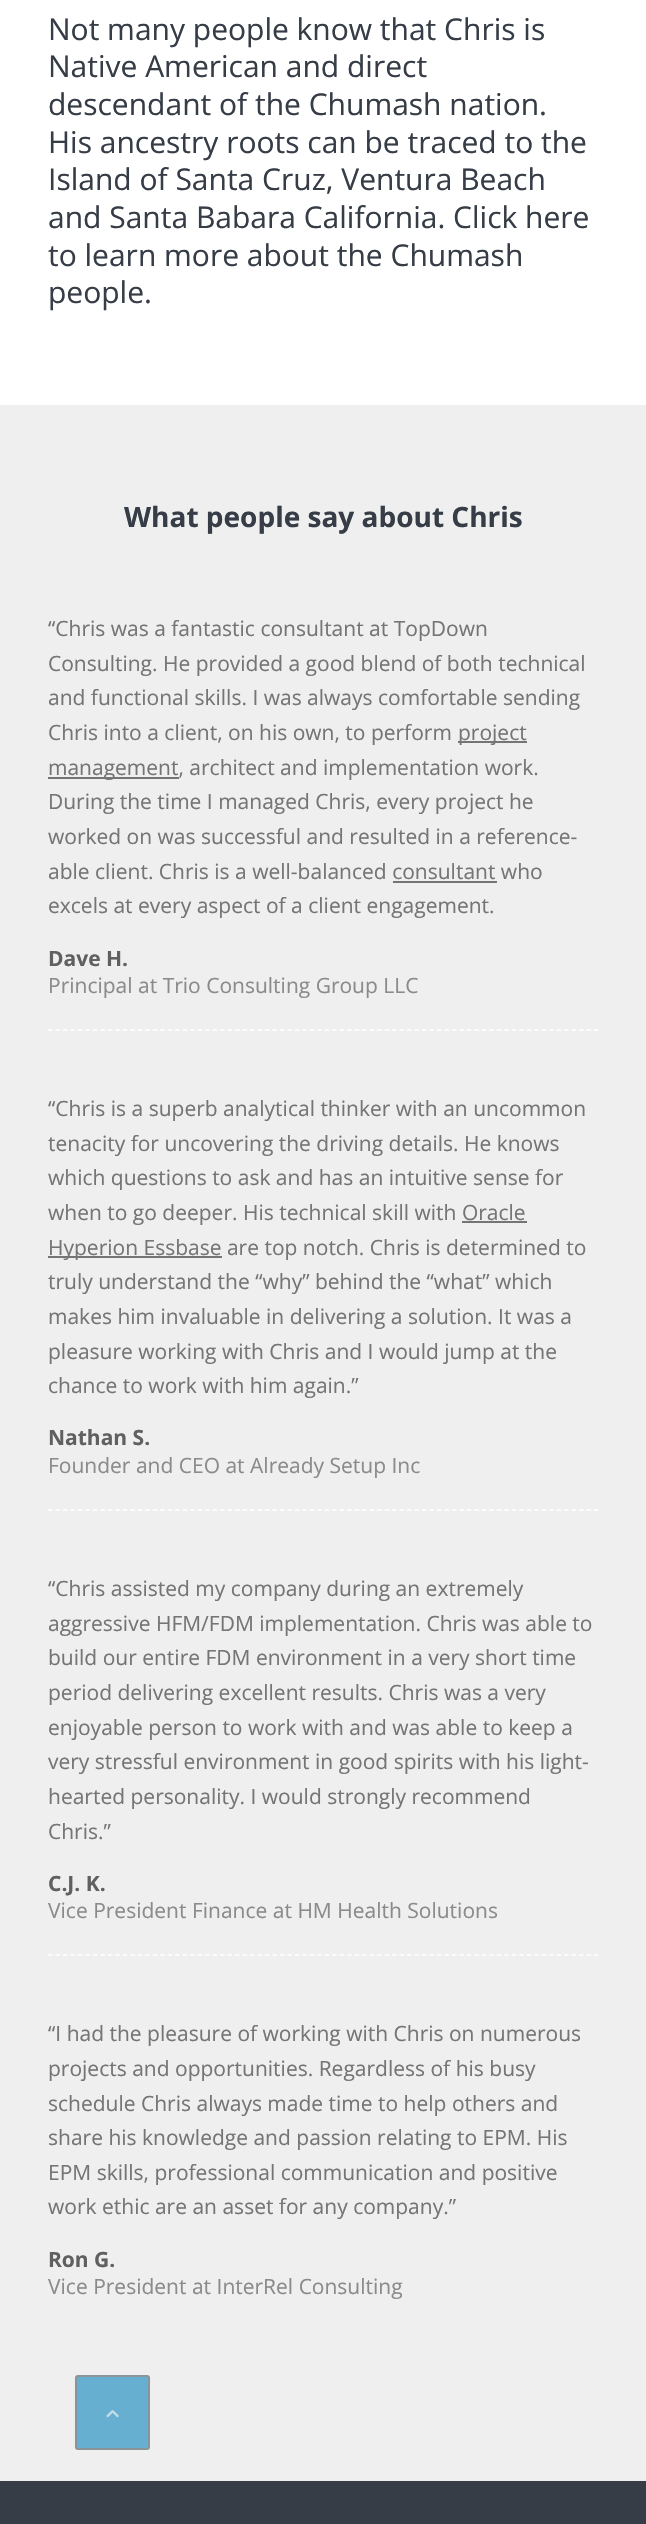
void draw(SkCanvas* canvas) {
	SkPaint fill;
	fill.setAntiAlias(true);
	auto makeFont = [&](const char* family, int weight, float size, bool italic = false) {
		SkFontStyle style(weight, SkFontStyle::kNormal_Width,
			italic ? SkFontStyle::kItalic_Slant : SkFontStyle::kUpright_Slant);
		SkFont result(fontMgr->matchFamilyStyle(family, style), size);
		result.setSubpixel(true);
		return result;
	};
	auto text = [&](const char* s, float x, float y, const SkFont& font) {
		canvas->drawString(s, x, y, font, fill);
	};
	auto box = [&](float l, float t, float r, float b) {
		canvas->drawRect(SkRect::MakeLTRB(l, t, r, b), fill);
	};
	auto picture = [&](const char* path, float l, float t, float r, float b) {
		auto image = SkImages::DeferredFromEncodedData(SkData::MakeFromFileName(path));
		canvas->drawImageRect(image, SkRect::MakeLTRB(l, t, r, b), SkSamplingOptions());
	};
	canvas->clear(0xFFFFFFFF);
	fill.setColor(0xFFEFEFEF);
	box(0, 405, 646, 2481);
	fill.setStyle(SkPaint::kStroke_Style);
	fill.setStrokeWidth(1.5f);
	fill.setColor(0xFFFFFFFF);
	fill.setPathEffect(SkDashPathEffect::Make({{4.5f, 2.98f}}, 0));
	canvas->drawPath(SkPathBuilder().moveTo(48, 1030).lineTo(598.5f, 1030).detach(), fill);
	fill.setPathEffect(nullptr);
	fill.setStyle(SkPaint::kFill_Style);
	fill.setColor(0xFF757575);
	box(458, 741, 527, 743);
	box(48, 777, 179, 779);
	box(393, 881, 497, 883);
	fill.setStyle(SkPaint::kStroke_Style);
	fill.setColor(0xFFFFFFFF);
	fill.setPathEffect(SkDashPathEffect::Make({{4.5f, 2.98f}}, 0));
	canvas->drawPath(SkPathBuilder().moveTo(48, 1510).lineTo(598.5f, 1510).detach(), fill);
	fill.setPathEffect(nullptr);
	fill.setStyle(SkPaint::kFill_Style);
	fill.setColor(0xFF757575);
	box(462, 1221, 527, 1223);
	box(48, 1256, 222, 1258);
	fill.setStyle(SkPaint::kStroke_Style);
	fill.setColor(0xFFFFFFFF);
	fill.setPathEffect(SkDashPathEffect::Make({{4.5f, 2.98f}}, 0));
	canvas->drawPath(SkPathBuilder().moveTo(48, 1955).lineTo(598.5f, 1955).detach(), fill);
	fill.setPathEffect(nullptr);
	fill.setStyle(SkPaint::kFill_Style);
	fill.setColor(0xFF363D46);
	box(0, 2481, 646, 2524);
	fill.setColor(0xFF67AFD0);
	canvas->drawRoundRect(SkRect::MakeLTRB(76, 2376, 149, 2449), 2, 2, fill);
	fill.setStyle(SkPaint::kStroke_Style);
	fill.setStrokeWidth(2);
	fill.setColor(0xFF8A9499);
	canvas->drawRoundRect(SkRect::MakeLTRB(76, 2376, 149, 2449), 2, 2, fill);
	picture("image0.png", 106, 2410, 119, 2418);
	auto font1 = makeFont("Open Sans", 400, 30);
	fill.setStyle(SkPaint::kFill_Style);
	fill.setColor(0xFF363D46);
	text("Not many people know that Chris is", 48, 40, font1);
	text("Native American and direct", 48, 77, font1);
	text("descendant of the Chumash nation.", 48, 115, font1);
	text("His ancestry roots can be traced to the", 48, 153, font1);
	text("Island of Santa Cruz, Ventura Beach", 48, 190, font1);
	text("and Santa Babara California. Click here", 48, 228, font1);
	text("to learn more about the Chumash", 48, 266, font1);
	text("people.", 48, 303, font1);
	auto font2 = makeFont("Open Sans", 700, 28);
	text("What people say about Chris", 124, 527, font2);
	auto font3 = makeFont("Open Sans", 400, 21);
	fill.setColor(0xFF757575);
	text("“Chris was a fantastic consultant at TopDown", 48, 636, font3);
	text("Consulting. He provided a good blend of both technical", 48, 671, font3);
	text("and functional skills. I was always comfortable sending", 48, 705, font3);
	text("Chris into a client, on his own, to perform", 48, 740, font3);
	text("project", 458, 740, font3);
	text("management, architect and implementation work.", 48, 775, font3);
	text("During the time I managed Chris, every project he", 48, 809, font3);
	text("worked on was successful and resulted in a reference-", 48, 844, font3);
	text("able client. Chris is a well-balanced consultant who", 48, 879, font3);
	text("excels at every aspect of a client engagement.", 48, 913, font3);
	auto font4 = makeFont("Open Sans", 700, 21);
	fill.setColor(0xFF606060);
	text("Dave H.", 48, 966, font4);
	fill.setColor(0xFF8B8B8B);
	text("Principal at Trio Consulting Group LLC", 48, 993, font3);
	fill.setColor(0xFF757575);
	text("“Chris is a superb analytical thinker with an uncommon", 48, 1116, font3);
	text("tenacity for uncovering the driving details. He knows", 48, 1151, font3);
	text("which questions to ask and has an intuitive sense for", 48, 1185, font3);
	text("when to go deeper. His technical skill with Oracle", 48, 1220, font3);
	text("Hyperion Essbase are top notch. Chris is determined to", 48, 1255, font3);
	text("truly understand the “why” behind the “what” which", 48, 1289, font3);
	text("makes him invaluable in delivering a solution. It was a", 48, 1324, font3);
	text("pleasure working with Chris and I would jump at the", 48, 1359, font3);
	text("chance to work with him again.”", 48, 1393, font3);
	fill.setColor(0xFF606060);
	text("Nathan S.", 48, 1445, font4);
	fill.setColor(0xFF8B8B8B);
	text("Founder and CEO at Already Setup Inc", 48, 1473, font3);
	fill.setColor(0xFF757575);
	text("“Chris assisted my company during an extremely", 48, 1596, font3);
	text("aggressive HFM/FDM implementation. Chris was able to", 48, 1631, font3);
	text("build our entire FDM environment in a very short time", 48, 1665, font3);
	text("period delivering excellent results. Chris was a very", 48, 1700, font3);
	text("enjoyable person to work with and was able to keep a", 48, 1735, font3);
	text("very stressful environment in good spirits with his light-", 48, 1769, font3);
	text("hearted personality. I would strongly recommend", 48, 1804, font3);
	text("Chris.”", 48, 1839, font3);
	fill.setColor(0xFF606060);
	text("C.J. K.", 48, 1891, font4);
	fill.setColor(0xFF8B8B8B);
	text("Vice President Finance at HM Health Solutions", 48, 1918, font3);
	fill.setColor(0xFF757575);
	text("“I had the pleasure of working with Chris on numerous", 48, 2041, font3);
	text("projects and opportunities. Regardless of his busy", 48, 2076, font3);
	text("schedule Chris always made time to help others and", 48, 2111, font3);
	text("share his knowledge and passion relating to EPM. His", 48, 2145, font3);
	text("EPM skills, professional communication and positive", 48, 2180, font3);
	text("work ethic are an asset for any company.”", 48, 2214, font3);
	fill.setColor(0xFF606060);
	text("Ron G.", 48, 2267, font4);
	fill.setColor(0xFF8B8B8B);
	text("Vice President at InterRel Consulting", 48, 2294, font3);
}
